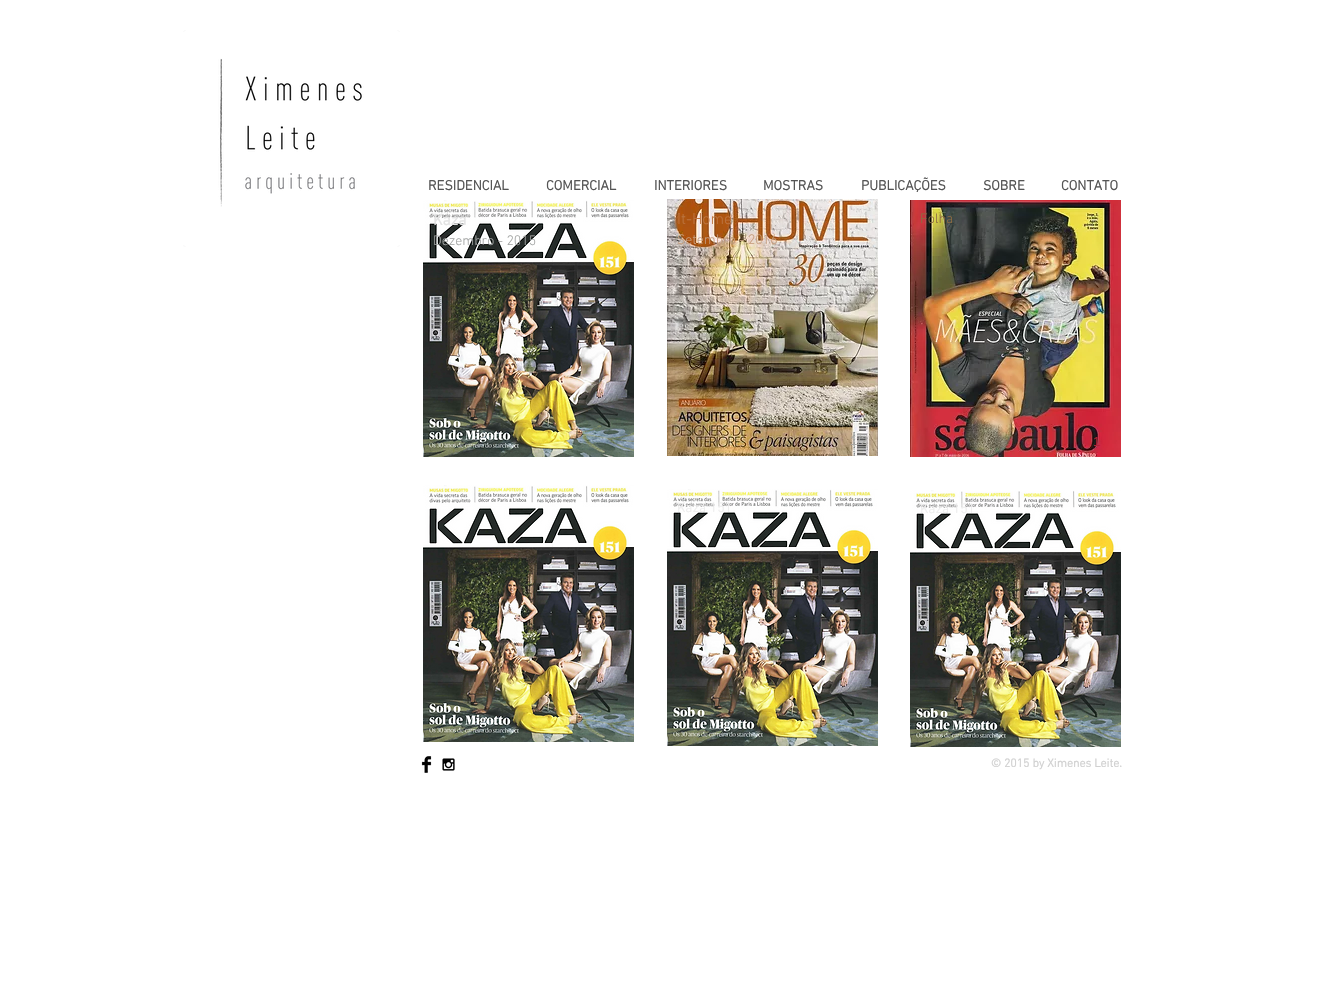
void draw(SkCanvas* canvas) {
	SkPaint fill;
	fill.setAntiAlias(true);
	auto makeFont = [&](const char* family, int weight, float size, bool italic = false) {
		SkFontStyle style(weight, SkFontStyle::kNormal_Width,
			italic ? SkFontStyle::kItalic_Slant : SkFontStyle::kUpright_Slant);
		SkFont result(fontMgr->matchFamilyStyle(family, style), size);
		result.setSubpixel(true);
		return result;
	};
	auto text = [&](const char* s, float x, float y, const SkFont& font) {
		canvas->drawString(s, x, y, font, fill);
	};
	auto picture = [&](const char* path, float l, float t, float r, float b) {
		auto image = SkImages::DeferredFromEncodedData(SkData::MakeFromFileName(path));
		canvas->drawImageRect(image, SkRect::MakeLTRB(l, t, r, b), SkSamplingOptions());
	};
	canvas->clear(0xFFFFFFFF);
	picture("image0.png", 183, 30, 400, 247);
	picture("image1.png", 423, 200, 634, 457);
	picture("image2.png", 667, 199, 878, 456);
	picture("image3.png", 910, 200, 1121, 457);
	picture("image1.png", 423, 485, 634, 742);
	picture("image1.png", 667, 489, 878, 746);
	picture("image1.png", 910, 490, 1121, 747);
	picture("image4.png", 421, 756, 432, 773);
	picture("image5.png", 442, 758, 455, 771);
	auto font1 = makeFont("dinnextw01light", 700, 14);
	fill.setColor(0xFF555555);
	text("RESIDENCIAL", 428, 190, font1);
	text("COMERCIAL", 546, 190, font1);
	text("INTERIORES", 654, 190, font1);
	text("MOSTRAS", 763, 190, font1);
	text("PUBLICAÇÕES", 861, 190, font1);
	text("SOBRE", 983, 190, font1);
	text("CONTATO", 1061, 190, font1);
	auto font2 = makeFont("dinnextw01light", 700, 16);
	fill.setColor(0xFFE3E3E3);
	text("Kaza", 433, 225, font2);
	auto font3 = makeFont("dinnextw01light", 300, 14);
	fill.setColor(0xFFA3A5A4);
	text("Dezembro - 2015", 433, 245, font3);
	auto font4 = makeFont("dinnextw01light", 300, 16);
	fill.setColor(0xFFBB733E);
	text("It-Home", 677, 224, font4);
	fill.setColor(0xFFC69D7D);
	text("Setembro - 2016", 677, 244, font3);
	auto font5 = makeFont("Liberation Sans", 400, 13);
	fill.setColor(0xFFA9A7A4);
	text("1/2", 850, 445, font5);
	fill.setColor(0xFF8C6B41);
	text("Folha", 920, 223, font3);
	fill.setColor(0xFFAC2436);
	text("1", 1093, 446, font5);
	fill.setColor(0xFFEDEDED);
	text("Kaza 151", 677, 512, font3);
	text("Kaza 151", 920, 513, font3);
	auto font6 = makeFont("dinnextw01light", 700, 12);
	fill.setColor(0xFFD1D1D1);
	text("© 2015 by Ximenes Leite.", 991, 767, font6);
}
